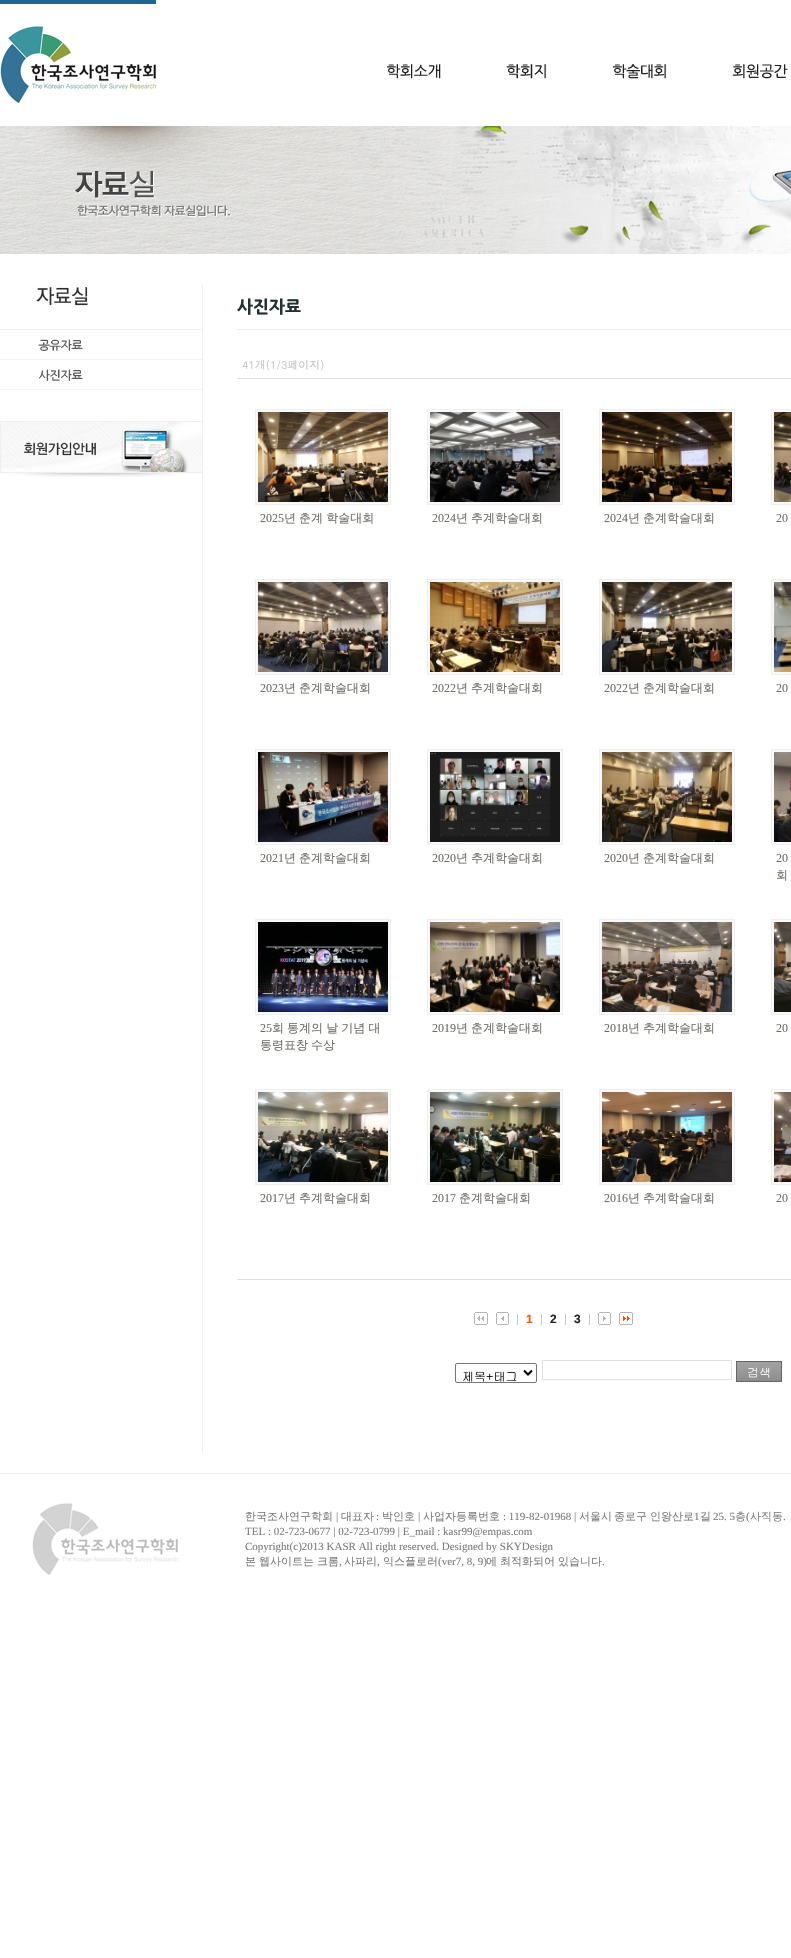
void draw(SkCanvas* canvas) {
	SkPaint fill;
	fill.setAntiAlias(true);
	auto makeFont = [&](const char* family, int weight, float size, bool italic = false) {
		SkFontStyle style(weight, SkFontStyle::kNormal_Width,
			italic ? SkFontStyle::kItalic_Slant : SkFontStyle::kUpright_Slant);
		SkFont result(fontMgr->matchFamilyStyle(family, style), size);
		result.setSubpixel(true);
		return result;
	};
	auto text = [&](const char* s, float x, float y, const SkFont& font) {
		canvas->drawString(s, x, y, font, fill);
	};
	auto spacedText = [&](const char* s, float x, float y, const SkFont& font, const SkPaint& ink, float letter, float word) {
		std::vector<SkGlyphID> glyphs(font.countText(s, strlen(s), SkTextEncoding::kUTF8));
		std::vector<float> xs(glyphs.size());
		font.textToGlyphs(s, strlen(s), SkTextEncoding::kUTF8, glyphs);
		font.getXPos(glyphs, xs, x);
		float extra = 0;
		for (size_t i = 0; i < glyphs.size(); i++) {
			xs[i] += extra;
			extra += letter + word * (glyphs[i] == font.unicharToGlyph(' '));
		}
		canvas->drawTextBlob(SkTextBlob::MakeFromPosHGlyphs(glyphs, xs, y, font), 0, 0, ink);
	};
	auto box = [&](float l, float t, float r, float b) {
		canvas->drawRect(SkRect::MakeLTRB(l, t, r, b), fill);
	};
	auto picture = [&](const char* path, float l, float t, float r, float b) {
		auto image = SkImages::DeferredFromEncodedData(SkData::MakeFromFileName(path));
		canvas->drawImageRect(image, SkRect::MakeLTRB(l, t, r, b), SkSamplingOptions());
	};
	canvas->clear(0xFFFFFFFF);
	fill.setColor(0xFF1D6697);
	box(0, 0, 156, 4);
	picture("image0.png", 0, 26, 156, 103);
	picture("image1.png", 387, 64, 441, 79);
	picture("image2.png", 506, 64, 546, 79);
	picture("image3.png", 613, 64, 666, 79);
	picture("image4.png", 732, 64, 788, 79);
	picture("image5.png", 0, 126, 791, 254);
	fill.setColor(0xFFF0F0F0);
	box(202, 330, 203, 1453);
	picture("image6.png", 0, 284, 203, 330);
	picture("image7.png", 0, 339, 202, 360);
	picture("image8.png", 0, 369, 203, 390);
	picture("image9.png", 0, 421, 202, 477);
	fill.setColor(0xFFEEEEEE);
	box(237, 329, 791, 330);
	fill.setColor(0xFFDFDFDF);
	box(237, 378, 791, 379);
	box(237, 1279, 791, 1280);
	fill.setColor(0xFFF9F9F9);
	canvas->drawRect(SkRect::MakeLTRB(255.5f, 409.5f, 390.5f, 504.5f), fill);
	fill.setStyle(SkPaint::kStroke_Style);
	fill.setStrokeWidth(1);
	fill.setColor(0xFFEFEFEF);
	canvas->drawRect(SkRect::MakeLTRB(255.5f, 409.5f, 390.5f, 504.5f), fill);
	picture("image10.png", 258, 412, 388, 502);
	fill.setStyle(SkPaint::kFill_Style);
	fill.setColor(0xFFF9F9F9);
	canvas->drawRect(SkRect::MakeLTRB(427.5f, 409.5f, 562.5f, 504.5f), fill);
	fill.setStyle(SkPaint::kStroke_Style);
	fill.setColor(0xFFEFEFEF);
	canvas->drawRect(SkRect::MakeLTRB(427.5f, 409.5f, 562.5f, 504.5f), fill);
	picture("image11.png", 430, 412, 560, 502);
	fill.setStyle(SkPaint::kFill_Style);
	fill.setColor(0xFFF9F9F9);
	canvas->drawRect(SkRect::MakeLTRB(599.5f, 409.5f, 734.5f, 504.5f), fill);
	fill.setStyle(SkPaint::kStroke_Style);
	fill.setColor(0xFFEFEFEF);
	canvas->drawRect(SkRect::MakeLTRB(599.5f, 409.5f, 734.5f, 504.5f), fill);
	picture("image12.png", 602, 412, 732, 502);
	fill.setStyle(SkPaint::kFill_Style);
	fill.setColor(0xFFF9F9F9);
	canvas->drawRect(SkRect::MakeLTRB(771.5f, 409.5f, 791.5f, 504.5f), fill);
	fill.setStyle(SkPaint::kStroke_Style);
	fill.setColor(0xFFEFEFEF);
	canvas->drawRect(SkRect::MakeLTRB(771.5f, 409.5f, 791.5f, 504.5f), fill);
	picture("image13.png", 774, 412, 791, 502);
	fill.setStyle(SkPaint::kFill_Style);
	fill.setColor(0xFFF9F9F9);
	canvas->drawRect(SkRect::MakeLTRB(255.5f, 579.5f, 390.5f, 674.5f), fill);
	fill.setStyle(SkPaint::kStroke_Style);
	fill.setColor(0xFFEFEFEF);
	canvas->drawRect(SkRect::MakeLTRB(255.5f, 579.5f, 390.5f, 674.5f), fill);
	picture("image14.png", 258, 582, 388, 672);
	fill.setStyle(SkPaint::kFill_Style);
	fill.setColor(0xFFF9F9F9);
	canvas->drawRect(SkRect::MakeLTRB(427.5f, 579.5f, 562.5f, 674.5f), fill);
	fill.setStyle(SkPaint::kStroke_Style);
	fill.setColor(0xFFEFEFEF);
	canvas->drawRect(SkRect::MakeLTRB(427.5f, 579.5f, 562.5f, 674.5f), fill);
	picture("image15.png", 430, 582, 560, 672);
	fill.setStyle(SkPaint::kFill_Style);
	fill.setColor(0xFFF9F9F9);
	canvas->drawRect(SkRect::MakeLTRB(599.5f, 579.5f, 734.5f, 674.5f), fill);
	fill.setStyle(SkPaint::kStroke_Style);
	fill.setColor(0xFFEFEFEF);
	canvas->drawRect(SkRect::MakeLTRB(599.5f, 579.5f, 734.5f, 674.5f), fill);
	picture("image16.png", 602, 582, 732, 672);
	fill.setStyle(SkPaint::kFill_Style);
	fill.setColor(0xFFF9F9F9);
	canvas->drawRect(SkRect::MakeLTRB(771.5f, 579.5f, 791.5f, 674.5f), fill);
	fill.setStyle(SkPaint::kStroke_Style);
	fill.setColor(0xFFEFEFEF);
	canvas->drawRect(SkRect::MakeLTRB(771.5f, 579.5f, 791.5f, 674.5f), fill);
	picture("image17.png", 774, 582, 791, 672);
	fill.setStyle(SkPaint::kFill_Style);
	fill.setColor(0xFFF9F9F9);
	canvas->drawRect(SkRect::MakeLTRB(255.5f, 749.5f, 390.5f, 844.5f), fill);
	fill.setStyle(SkPaint::kStroke_Style);
	fill.setColor(0xFFEFEFEF);
	canvas->drawRect(SkRect::MakeLTRB(255.5f, 749.5f, 390.5f, 844.5f), fill);
	picture("image18.png", 258, 752, 388, 842);
	fill.setStyle(SkPaint::kFill_Style);
	fill.setColor(0xFFF9F9F9);
	canvas->drawRect(SkRect::MakeLTRB(427.5f, 749.5f, 562.5f, 844.5f), fill);
	fill.setStyle(SkPaint::kStroke_Style);
	fill.setColor(0xFFEFEFEF);
	canvas->drawRect(SkRect::MakeLTRB(427.5f, 749.5f, 562.5f, 844.5f), fill);
	picture("image19.png", 430, 752, 560, 842);
	fill.setStyle(SkPaint::kFill_Style);
	fill.setColor(0xFFF9F9F9);
	canvas->drawRect(SkRect::MakeLTRB(599.5f, 749.5f, 734.5f, 844.5f), fill);
	fill.setStyle(SkPaint::kStroke_Style);
	fill.setColor(0xFFEFEFEF);
	canvas->drawRect(SkRect::MakeLTRB(599.5f, 749.5f, 734.5f, 844.5f), fill);
	picture("image20.png", 602, 752, 732, 842);
	fill.setStyle(SkPaint::kFill_Style);
	fill.setColor(0xFFF9F9F9);
	canvas->drawRect(SkRect::MakeLTRB(771.5f, 749.5f, 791.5f, 844.5f), fill);
	fill.setStyle(SkPaint::kStroke_Style);
	fill.setColor(0xFFEFEFEF);
	canvas->drawRect(SkRect::MakeLTRB(771.5f, 749.5f, 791.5f, 844.5f), fill);
	picture("image21.png", 774, 752, 791, 842);
	fill.setStyle(SkPaint::kFill_Style);
	fill.setColor(0xFFF9F9F9);
	canvas->drawRect(SkRect::MakeLTRB(255.5f, 919.5f, 390.5f, 1014.5f), fill);
	fill.setStyle(SkPaint::kStroke_Style);
	fill.setColor(0xFFEFEFEF);
	canvas->drawRect(SkRect::MakeLTRB(255.5f, 919.5f, 390.5f, 1014.5f), fill);
	picture("image22.png", 258, 922, 388, 1012);
	fill.setStyle(SkPaint::kFill_Style);
	fill.setColor(0xFFF9F9F9);
	canvas->drawRect(SkRect::MakeLTRB(427.5f, 919.5f, 562.5f, 1014.5f), fill);
	fill.setStyle(SkPaint::kStroke_Style);
	fill.setColor(0xFFEFEFEF);
	canvas->drawRect(SkRect::MakeLTRB(427.5f, 919.5f, 562.5f, 1014.5f), fill);
	picture("image23.png", 430, 922, 560, 1012);
	fill.setStyle(SkPaint::kFill_Style);
	fill.setColor(0xFFF9F9F9);
	canvas->drawRect(SkRect::MakeLTRB(599.5f, 919.5f, 734.5f, 1014.5f), fill);
	fill.setStyle(SkPaint::kStroke_Style);
	fill.setColor(0xFFEFEFEF);
	canvas->drawRect(SkRect::MakeLTRB(599.5f, 919.5f, 734.5f, 1014.5f), fill);
	picture("image24.png", 602, 922, 732, 1012);
	fill.setStyle(SkPaint::kFill_Style);
	fill.setColor(0xFFF9F9F9);
	canvas->drawRect(SkRect::MakeLTRB(771.5f, 919.5f, 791.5f, 1014.5f), fill);
	fill.setStyle(SkPaint::kStroke_Style);
	fill.setColor(0xFFEFEFEF);
	canvas->drawRect(SkRect::MakeLTRB(771.5f, 919.5f, 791.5f, 1014.5f), fill);
	picture("image25.png", 774, 922, 791, 1012);
	fill.setStyle(SkPaint::kFill_Style);
	fill.setColor(0xFFF9F9F9);
	canvas->drawRect(SkRect::MakeLTRB(255.5f, 1089.5f, 390.5f, 1184.5f), fill);
	fill.setStyle(SkPaint::kStroke_Style);
	fill.setColor(0xFFEFEFEF);
	canvas->drawRect(SkRect::MakeLTRB(255.5f, 1089.5f, 390.5f, 1184.5f), fill);
	picture("image26.png", 258, 1092, 388, 1182);
	fill.setStyle(SkPaint::kFill_Style);
	fill.setColor(0xFFF9F9F9);
	canvas->drawRect(SkRect::MakeLTRB(427.5f, 1089.5f, 562.5f, 1184.5f), fill);
	fill.setStyle(SkPaint::kStroke_Style);
	fill.setColor(0xFFEFEFEF);
	canvas->drawRect(SkRect::MakeLTRB(427.5f, 1089.5f, 562.5f, 1184.5f), fill);
	picture("image27.png", 430, 1092, 560, 1182);
	fill.setStyle(SkPaint::kFill_Style);
	fill.setColor(0xFFF9F9F9);
	canvas->drawRect(SkRect::MakeLTRB(599.5f, 1089.5f, 734.5f, 1184.5f), fill);
	fill.setStyle(SkPaint::kStroke_Style);
	fill.setColor(0xFFEFEFEF);
	canvas->drawRect(SkRect::MakeLTRB(599.5f, 1089.5f, 734.5f, 1184.5f), fill);
	picture("image28.png", 602, 1092, 732, 1182);
	fill.setStyle(SkPaint::kFill_Style);
	fill.setColor(0xFFF9F9F9);
	canvas->drawRect(SkRect::MakeLTRB(771.5f, 1089.5f, 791.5f, 1184.5f), fill);
	fill.setStyle(SkPaint::kStroke_Style);
	fill.setColor(0xFFEFEFEF);
	canvas->drawRect(SkRect::MakeLTRB(771.5f, 1089.5f, 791.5f, 1184.5f), fill);
	picture("image29.png", 774, 1092, 791, 1182);
	picture("image30.png", 474, 1312, 488, 1325);
	picture("image31.png", 496, 1312, 509, 1325);
	fill.setStyle(SkPaint::kFill_Style);
	fill.setColor(0xFFC6C6C6);
	box(517, 1314, 518, 1325);
	box(541, 1314, 542, 1325);
	box(565, 1314, 566, 1325);
	box(589, 1314, 590, 1325);
	picture("image32.png", 598, 1312, 611, 1325);
	picture("image33.png", 619, 1312, 633, 1325);
	fill.setStyle(SkPaint::kStroke_Style);
	fill.setColor(0xFF767676);
	canvas->drawRoundRect(SkRect::MakeLTRB(455.5f, 1363.5f, 536.5f, 1382.5f), 1.5f, 1.5f, fill);
	fill.setStrokeWidth(2);
	fill.setColor(0xFF000000);
	canvas->drawPath(SkPathBuilder().moveTo(524, 1370.5f).lineTo(528, 1374.5f).lineTo(532, 1370.5f).detach(), fill);
	fill.setStrokeWidth(1);
	fill.setColor(0xFFDFDFDF);
	canvas->drawRect(SkRect::MakeLTRB(542.5f, 1360.5f, 731.5f, 1379.5f), fill);
	picture("image34.png", 737, 1362, 781, 1381);
	fill.setColor(0xFF666666);
	canvas->drawRect(SkRect::MakeLTRB(736.5f, 1361.5f, 781.5f, 1381.5f), fill);
	fill.setStyle(SkPaint::kFill_Style);
	fill.setColor(0xFFF1F1F1);
	box(0, 1473, 791, 1474);
	picture("image35.png", 32, 1503, 178, 1575);
	auto font1 = makeFont("NanumGothic", 800, 17);
	fill.setColor(0xFF223030);
	text("사진자료", 237, 313, font1);
	auto font2 = makeFont("Dotum", 400, 11);
	fill.setColor(0xFFC0C0C0);
	text("41개(1/3페이지)", 242, 369, font2);
	auto font3 = makeFont("Liberation Serif", 400, 12);
	fill.setColor(0xFF6F6B66);
	text("2025", 260, 522, font3);
	auto font4 = makeFont("WenQuanYi Zen Hei", 500, 12);
	spacedText("년 춘계 학술대회", 284, 522, font4, fill, 0, -0.5f);
	text("2024", 432, 522, font3);
	spacedText("년 추계학술대회", 456, 522, font4, fill, 0, -0.5f);
	text("2024", 604, 522, font3);
	spacedText("년 춘계학술대회", 628, 522, font4, fill, 0, -0.5f);
	text("20", 776, 522, font3);
	text("2023", 260, 692, font3);
	spacedText("년 춘계학술대회", 284, 692, font4, fill, 0, -0.5f);
	text("2022", 432, 692, font3);
	spacedText("년 추계학술대회", 456, 692, font4, fill, 0, -0.5f);
	text("2022", 604, 692, font3);
	spacedText("년 춘계학술대회", 628, 692, font4, fill, 0, -0.5f);
	text("20", 776, 692, font3);
	text("2021", 260, 862, font3);
	spacedText("년 춘계학술대회", 284, 862, font4, fill, 0, -0.5f);
	text("2020", 432, 862, font3);
	spacedText("년 추계학술대회", 456, 862, font4, fill, 0, -0.5f);
	text("2020", 604, 862, font3);
	spacedText("년 춘계학술대회", 628, 862, font4, fill, 0, -0.5f);
	text("20", 776, 862, font3);
	text("회", 776, 879, font4);
	text("25", 260, 1032, font3);
	spacedText("회 통계의 날 기념 대", 272, 1032, font4, fill, 0, -0.5f);
	spacedText("통령표창 수상", 260, 1049, font4, fill, 0, -0.5f);
	text("2019", 432, 1032, font3);
	spacedText("년 춘계학술대회", 456, 1032, font4, fill, 0, -0.5f);
	text("2018", 604, 1032, font3);
	spacedText("년 추계학술대회", 628, 1032, font4, fill, 0, -0.5f);
	text("20", 776, 1032, font3);
	text("2017", 260, 1202, font3);
	spacedText("년 추계학술대회", 284, 1202, font4, fill, 0, -0.5f);
	text("2017", 432, 1202, font3);
	text("춘계학술대회", 459, 1202, font4);
	text("2016", 604, 1202, font3);
	spacedText("년 추계학술대회", 628, 1202, font4, fill, 0, -0.5f);
	text("20", 776, 1202, font3);
	auto font5 = makeFont("Liberation Sans", 700, 12);
	fill.setColor(0xFFFF5B01);
	text("1", 526, 1323, font5);
	fill.setColor(0xFF222222);
	text("2", 550, 1323, font5);
	text("3", 574, 1323, font5);
	auto font6 = makeFont("Gulim", 400, 12);
	fill.setColor(0xFF000000);
	text("제목+태그", 462, 1381, font6);
	fill.setColor(0xFFFFFFFF);
	text("검색", 747, 1377, font6);
	auto font7 = makeFont("WenQuanYi Zen Hei", 500, 11);
	fill.setColor(0xFF7A7A7A);
	text("한국조사연구학회", 245, 1520, font7);
	auto font8 = makeFont("Liberation Serif", 400, 11);
	text("|", 336, 1520, font8);
	text("대표자", 341, 1520, font7);
	text(":", 376, 1520, font8);
	text("박인호", 382, 1520, font7);
	text("|", 418, 1520, font8);
	text("사업자등록번호", 423, 1520, font7);
	text(": 119-82-01968 |", 503, 1520, font8);
	text("서울시", 579, 1520, font7);
	text("종로구", 614, 1520, font7);
	text("인왕산로", 650, 1520, font7);
	text("1", 694, 1520, font8);
	text("길", 700, 1520, font7);
	text("25. 5", 713, 1520, font8);
	text("층", 735, 1520, font7);
	text("(", 746, 1520, font8);
	text("사직동", 750, 1520, font7);
	text(".", 783, 1520, font8);
	text("TEL : 02-723-0677 | 02-723-0799 | E_mail : kasr99@empas.com", 245, 1535, font8);
	text("Copyright(c)2013 KASR All right reserved. Designed by SKYDesign", 245, 1550, font8);
	text("본", 245, 1565, font7);
	text("웹사이트는", 259, 1565, font7);
	text("크롬", 317, 1565, font7);
	text(",", 339, 1565, font8);
	text("사파리", 344, 1565, font7);
	text(",", 377, 1565, font8);
	text("익스플로러", 383, 1565, font7);
	text("(ver7, 8, 9)", 438, 1565, font8);
	text("에", 486, 1565, font7);
	text("최적화되어", 500, 1565, font7);
	text("있습니다", 558, 1565, font7);
	text(".", 602, 1565, font8);
}
